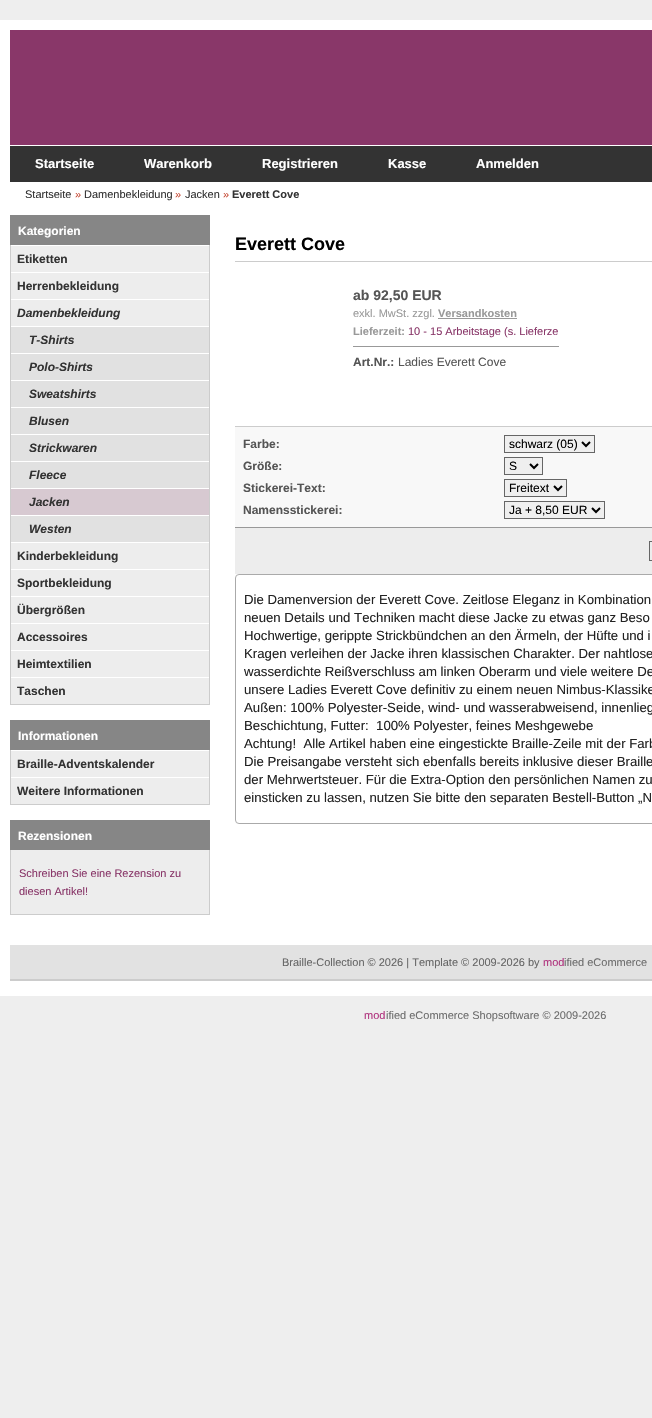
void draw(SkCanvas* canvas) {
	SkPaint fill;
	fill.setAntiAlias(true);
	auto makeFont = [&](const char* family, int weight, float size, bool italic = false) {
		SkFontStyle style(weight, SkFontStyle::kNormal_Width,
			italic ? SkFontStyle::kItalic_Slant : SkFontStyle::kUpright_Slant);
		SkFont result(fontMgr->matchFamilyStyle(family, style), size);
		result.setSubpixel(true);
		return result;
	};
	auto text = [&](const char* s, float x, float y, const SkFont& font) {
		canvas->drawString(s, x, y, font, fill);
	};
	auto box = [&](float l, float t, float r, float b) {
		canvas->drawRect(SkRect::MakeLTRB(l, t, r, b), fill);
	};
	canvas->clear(0xFFEEEEEE);
	fill.setColor(0xFFFFFFFF);
	box(10, 182, 652, 996);
	box(0, 20, 10, 996);
	fill.setColor(0xFF893769);
	box(10, 30, 652, 145);
	fill.setColor(0xFFFFFFFF);
	box(10, 20, 652, 30);
	box(10, 145, 652, 146);
	fill.setColor(0xFF333333);
	box(10, 146, 652, 182);
	fill.setColor(0xFF868686);
	box(10, 215, 210, 245);
	fill.setColor(0xFFEDEDED);
	box(11, 246, 209, 704);
	fill.setColor(0xFFCCCCCC);
	box(209, 245, 210, 705);
	box(10, 704, 210, 705);
	box(10, 245, 11, 705);
	fill.setColor(0xFFFFFFFF);
	box(11, 272, 209, 273);
	box(11, 299, 209, 300);
	box(11, 326, 209, 327);
	fill.setColor(0xFFE1E1E1);
	box(11, 327, 209, 353);
	fill.setColor(0xFFFFFFFF);
	box(11, 353, 209, 354);
	fill.setColor(0xFFE1E1E1);
	box(11, 354, 209, 380);
	fill.setColor(0xFFFFFFFF);
	box(11, 380, 209, 381);
	fill.setColor(0xFFE1E1E1);
	box(11, 381, 209, 407);
	fill.setColor(0xFFFFFFFF);
	box(11, 407, 209, 408);
	fill.setColor(0xFFE1E1E1);
	box(11, 408, 209, 434);
	fill.setColor(0xFFFFFFFF);
	box(11, 434, 209, 435);
	fill.setColor(0xFFE1E1E1);
	box(11, 435, 209, 461);
	fill.setColor(0xFFFFFFFF);
	box(11, 461, 209, 462);
	fill.setColor(0xFFE1E1E1);
	box(11, 462, 209, 488);
	fill.setColor(0xFFFFFFFF);
	box(11, 488, 209, 489);
	fill.setColor(0xFFD7C9D1);
	box(11, 489, 209, 515);
	fill.setColor(0xFFFFFFFF);
	box(11, 515, 209, 516);
	fill.setColor(0xFFE1E1E1);
	box(11, 516, 209, 542);
	fill.setColor(0xFFFFFFFF);
	box(11, 542, 209, 543);
	box(11, 569, 209, 570);
	box(11, 596, 209, 597);
	box(11, 623, 209, 624);
	box(11, 650, 209, 651);
	box(11, 677, 209, 678);
	fill.setColor(0xFF868686);
	box(10, 720, 210, 750);
	fill.setColor(0xFFEDEDED);
	box(11, 751, 209, 804);
	fill.setColor(0xFFCCCCCC);
	box(209, 750, 210, 805);
	box(10, 804, 210, 805);
	box(10, 750, 11, 805);
	fill.setColor(0xFFFFFFFF);
	box(11, 777, 209, 778);
	fill.setColor(0xFF868686);
	box(10, 820, 210, 850);
	fill.setColor(0xFFEDEDED);
	box(11, 850, 209, 914);
	fill.setColor(0xFFCCCCCC);
	box(209, 850, 210, 915);
	box(10, 914, 210, 915);
	box(10, 850, 11, 915);
	box(235, 261, 652, 262);
	fill.setColor(0xFF999999);
	box(438, 318, 517, 319);
	box(353, 346, 559, 347);
	fill.setColor(0xFFF8F8F8);
	box(235, 427, 652, 527);
	fill.setColor(0xFFCCCCCC);
	box(235, 426, 652, 427);
	fill.setColor(0xFFEFEFEF);
	canvas->drawRect(SkRect::MakeLTRB(504.5f, 435.5f, 594.5f, 452.5f), fill);
	fill.setStyle(SkPaint::kStroke_Style);
	fill.setStrokeWidth(1);
	fill.setColor(0xFF666666);
	canvas->drawRect(SkRect::MakeLTRB(504.5f, 435.5f, 594.5f, 452.5f), fill);
	fill.setStrokeWidth(2);
	fill.setColor(0xFF000000);
	canvas->drawPath(SkPathBuilder().moveTo(582, 442).lineTo(586, 446).lineTo(590, 442).detach(), fill);
	fill.setStyle(SkPaint::kFill_Style);
	fill.setColor(0xFFEFEFEF);
	canvas->drawRect(SkRect::MakeLTRB(504.5f, 457.5f, 542.5f, 474.5f), fill);
	fill.setStyle(SkPaint::kStroke_Style);
	fill.setStrokeWidth(1);
	fill.setColor(0xFF666666);
	canvas->drawRect(SkRect::MakeLTRB(504.5f, 457.5f, 542.5f, 474.5f), fill);
	fill.setStrokeWidth(2);
	fill.setColor(0xFF000000);
	canvas->drawPath(SkPathBuilder().moveTo(530, 464).lineTo(534, 468).lineTo(538, 464).detach(), fill);
	fill.setStyle(SkPaint::kFill_Style);
	fill.setColor(0xFFEFEFEF);
	canvas->drawRect(SkRect::MakeLTRB(504.5f, 479.5f, 566.5f, 496.5f), fill);
	fill.setStyle(SkPaint::kStroke_Style);
	fill.setStrokeWidth(1);
	fill.setColor(0xFF666666);
	canvas->drawRect(SkRect::MakeLTRB(504.5f, 479.5f, 566.5f, 496.5f), fill);
	fill.setStrokeWidth(2);
	fill.setColor(0xFF000000);
	canvas->drawPath(SkPathBuilder().moveTo(554, 486).lineTo(558, 490).lineTo(562, 486).detach(), fill);
	fill.setStyle(SkPaint::kFill_Style);
	fill.setColor(0xFFEFEFEF);
	canvas->drawRect(SkRect::MakeLTRB(504.5f, 501.5f, 604.5f, 518.5f), fill);
	fill.setStyle(SkPaint::kStroke_Style);
	fill.setStrokeWidth(1);
	fill.setColor(0xFF666666);
	canvas->drawRect(SkRect::MakeLTRB(504.5f, 501.5f, 604.5f, 518.5f), fill);
	fill.setStrokeWidth(2);
	fill.setColor(0xFF000000);
	canvas->drawPath(SkPathBuilder().moveTo(592, 508).lineTo(596, 512).lineTo(600, 508).detach(), fill);
	fill.setStyle(SkPaint::kFill_Style);
	fill.setColor(0xFFEDEDED);
	box(235, 528, 652, 574);
	fill.setColor(0xFF999999);
	box(235, 527, 652, 528);
	fill.setStyle(SkPaint::kStroke_Style);
	fill.setStrokeWidth(1);
	fill.setColor(0xFF666666);
	canvas->drawRect(SkRect::MakeLTRB(649.5f, 541.5f, 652.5f, 560.5f), fill);
	fill.setColor(0xFFAAAAAA);
	canvas->drawRoundRect(SkRect::MakeLTRB(235.5f, 574.5f, 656.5f, 823.5f), 3.5f, 3.5f, fill);
	fill.setStyle(SkPaint::kFill_Style);
	fill.setColor(0xFFE2E2E2);
	box(10, 945, 652, 979);
	fill.setColor(0xFFCCCCCC);
	box(10, 979, 652, 981);
	auto font1 = makeFont("Liberation Sans", 700, 13);
	fill.setColor(0xFFFFFFFF);
	text("Startseite", 35, 168, font1);
	text("Warenkorb", 144, 168, font1);
	text("Registrieren", 262, 168, font1);
	text("Kasse", 388, 168, font1);
	text("Anmelden", 476, 168, font1);
	auto font2 = makeFont("Liberation Sans", 400, 11);
	fill.setColor(0xFF333333);
	text("Startseite", 25, 198, font2);
	fill.setColor(0xFFC64934);
	text("»", 75, 198, font2);
	fill.setColor(0xFF333333);
	text("Damenbekleidung", 84, 198, font2);
	fill.setColor(0xFFC64934);
	text("»", 175, 198, font2);
	fill.setColor(0xFF333333);
	text("Jacken", 185, 198, font2);
	fill.setColor(0xFFC64934);
	text("»", 223, 198, font2);
	auto font3 = makeFont("Liberation Sans", 700, 11);
	fill.setColor(0xFF333333);
	text("Everett Cove", 232, 198, font3);
	auto font4 = makeFont("Liberation Sans", 700, 12);
	fill.setColor(0xFFFFFFFF);
	text("Kategorien", 18, 235, font4);
	fill.setColor(0xFF333333);
	text("Etiketten", 17, 263, font4);
	text("Herrenbekleidung", 17, 290, font4);
	auto font5 = makeFont("Liberation Sans", 700, 12, true);
	text("Damenbekleidung", 17, 317, font5);
	text("T-Shirts", 29, 344, font5);
	text("Polo-Shirts", 29, 371, font5);
	text("Sweatshirts", 29, 398, font5);
	text("Blusen", 29, 425, font5);
	text("Strickwaren", 29, 452, font5);
	text("Fleece", 29, 479, font5);
	text("Jacken", 29, 506, font5);
	text("Westen", 29, 533, font5);
	text("Kinderbekleidung", 17, 560, font4);
	text("Sportbekleidung", 17, 587, font4);
	text("Übergrößen", 17, 614, font4);
	text("Accessoires", 17, 641, font4);
	text("Heimtextilien", 17, 668, font4);
	text("Taschen", 17, 695, font4);
	fill.setColor(0xFFFFFFFF);
	text("Informationen", 18, 740, font4);
	fill.setColor(0xFF333333);
	text("Braille-Adventskalender", 17, 768, font4);
	text("Weitere Informationen", 17, 795, font4);
	fill.setColor(0xFFFFFFFF);
	text("Rezensionen", 18, 840, font4);
	fill.setColor(0xFF893769);
	text("Schreiben Sie eine Rezension zu", 19, 877, font2);
	text("diesen Artikel!", 19, 895, font2);
	auto font6 = makeFont("Liberation Sans", 700, 18);
	fill.setColor(0xFF000000);
	text("Everett Cove", 235, 250, font6);
	auto font7 = makeFont("Liberation Sans", 700, 14);
	fill.setColor(0xFF555555);
	text("ab 92,50 EUR", 353, 300, font7);
	fill.setColor(0xFF999999);
	text("exkl. MwSt. zzgl.", 353, 317, font2);
	text("Versandkosten", 438, 317, font3);
	text("Lieferzeit:", 353, 335, font3);
	fill.setColor(0xFF893769);
	text("10 - 15 Arbeitstage (s. Lieferze", 408, 335, font2);
	fill.setColor(0xFF555555);
	text("Art.Nr.:", 353, 366, font4);
	auto font8 = makeFont("Liberation Sans", 400, 12);
	text("Ladies Everett Cove", 398, 366, font8);
	text("Farbe:", 243, 448, font4);
	fill.setColor(0xFF000000);
	text("schwarz (05)", 509, 448, font8);
	fill.setColor(0xFF555555);
	text("Größe:", 243, 470, font4);
	fill.setColor(0xFF000000);
	text("S", 509, 470, font8);
	fill.setColor(0xFF555555);
	text("Stickerei-Text:", 243, 492, font4);
	fill.setColor(0xFF000000);
	text("Freitext", 509, 492, font8);
	fill.setColor(0xFF555555);
	text("Namensstickerei:", 243, 514, font4);
	fill.setColor(0xFF000000);
	text("Ja + 8,50 EUR", 509, 514, font8);
	auto font9 = makeFont("Liberation Sans", 400, 13.2f);
	fill.setColor(0xFF222222);
	text("Die Damenversion der Everett Cove. Zeitlose Eleganz in Kombination", 244, 604, font9);
	text("neuen Details und Techniken macht diese Jacke zu etwas ganz Beso", 244, 622, font9);
	text("Hochwertige, gerippte Strickbündchen an den Ärmeln, der Hüfte und i", 244, 640, font9);
	text("Kragen verleihen der Jacke ihren klassischen Charakter. Der nahtlose", 244, 658, font9);
	text("wasserdichte Reißverschluss am linken Oberarm und viele weitere De", 244, 676, font9);
	text("unsere Ladies Everett Cove definitiv zu einem neuen Nimbus-Klassike", 244, 694, font9);
	text("Außen: 100% Polyester-Seide, wind- und wasserabweisend, innenlieg", 244, 712, font9);
	text("Beschichtung, Futter:  100% Polyester, feines Meshgewebe", 244, 730, font9);
	text("Achtung!  Alle Artikel haben eine eingestickte Braille-Zeile mit der Farb", 244, 748, font9);
	text("Die Preisangabe versteht sich ebenfalls bereits inklusive dieser Braille", 244, 766, font9);
	text("der Mehrwertsteuer. Für die Extra-Option den persönlichen Namen zu", 244, 784, font9);
	text("einsticken zu lassen, nutzen Sie bitte den separaten Bestell-Button „N", 244, 802, font9);
	fill.setColor(0xFF666666);
	text("Braille-Collection © 2026 | Template © 2009-2026 by", 282, 966, font2);
	fill.setColor(0xFFB0347E);
	text("mod", 543, 966, font2);
	fill.setColor(0xFF6D6D6D);
	text("ified eCommerce", 564, 966, font2);
	fill.setColor(0xFFB0347E);
	text("mod", 364, 1019, font2);
	fill.setColor(0xFF6D6D6D);
	text("ified eCommerce Shopsoftware © 2009-2026", 386, 1019, font2);
}
